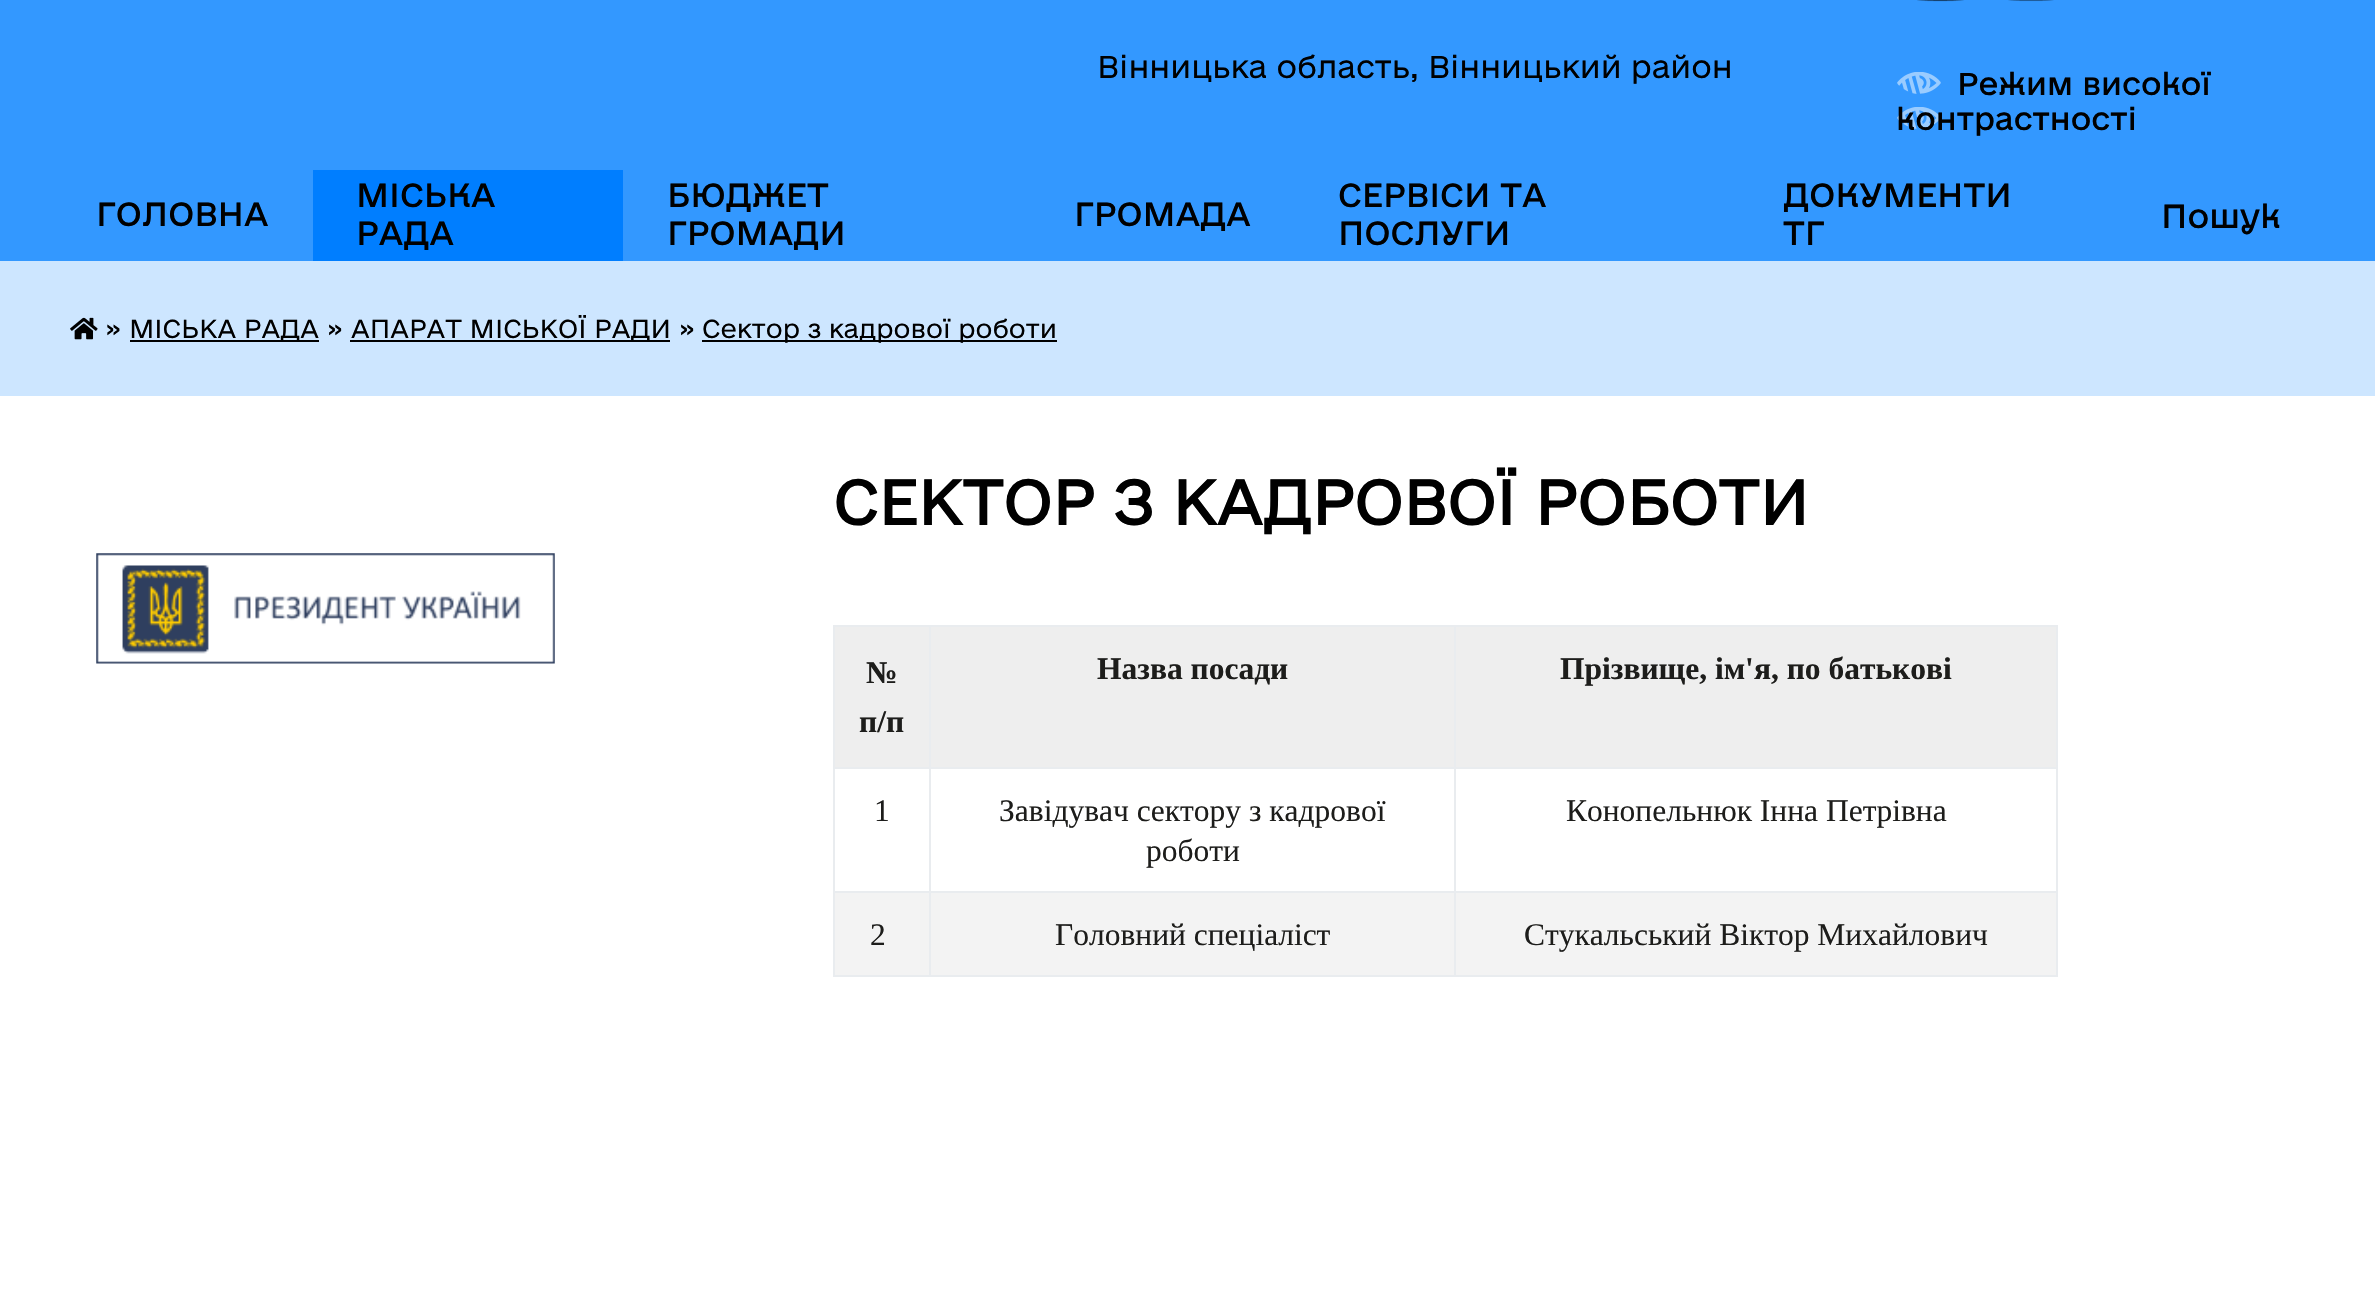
void draw(SkCanvas* canvas) {
	SkPaint fill;
	fill.setAntiAlias(true);
	auto makeFont = [&](const char* family, int weight, float size, bool italic = false) {
		SkFontStyle style(weight, SkFontStyle::kNormal_Width,
			italic ? SkFontStyle::kItalic_Slant : SkFontStyle::kUpright_Slant);
		SkFont result(fontMgr->matchFamilyStyle(family, style), size);
		result.setSubpixel(true);
		return result;
	};
	auto text = [&](const char* s, float x, float y, const SkFont& font) {
		canvas->drawString(s, x, y, font, fill);
	};
	auto box = [&](float l, float t, float r, float b) {
		canvas->drawRect(SkRect::MakeLTRB(l, t, r, b), fill);
	};
	auto picture = [&](const char* path, float l, float t, float r, float b) {
		auto image = SkImages::DeferredFromEncodedData(SkData::MakeFromFileName(path));
		canvas->drawImageRect(image, SkRect::MakeLTRB(l, t, r, b), SkSamplingOptions());
	};
	canvas->clear(0xFFFFFFFF);
	fill.setColor(0xFF3398FF);
	box(0, 0, 2375, 261);
	picture("image0.png", 1917, 0, 2054, 2);
	picture("image1.png", 1897, 72, 1941, 129);
	fill.setColor(0xFF007EFF);
	box(313, 170, 623, 261);
	fill.setColor(0xFFCDE6FF);
	box(0, 261, 2375, 396);
	picture("image2.png", 70, 317, 98, 340);
	fill.setColor(0xFF000000);
	box(130, 340, 319, 342);
	box(350, 340, 670, 342);
	box(702, 340, 1057, 342);
	picture("image3.png", 96, 553, 555, 664);
	fill.setColor(0xFFE9ECEF);
	box(833, 625, 2058, 627);
	box(2056, 625, 2058, 977);
	box(833, 975, 2058, 977);
	box(833, 625, 835, 977);
	fill.setColor(0xFFEEEEEE);
	box(835, 627, 929, 767);
	box(931, 627, 1454, 767);
	fill.setColor(0xFFE9ECEF);
	box(1454, 767, 2058, 769);
	box(1454, 891, 2058, 893);
	fill.setColor(0xFFF3F3F3);
	box(835, 893, 2056, 975);
	fill.setColor(0xFFE9ECEF);
	box(1454, 891, 1456, 977);
	box(929, 891, 1456, 893);
	box(1454, 767, 1456, 893);
	box(929, 767, 1456, 769);
	box(929, 891, 931, 977);
	box(833, 891, 931, 893);
	box(929, 767, 931, 893);
	box(833, 767, 931, 769);
	box(929, 625, 931, 768);
	fill.setColor(0xFFEEEEEE);
	box(1456, 627, 2056, 767);
	fill.setColor(0xFFE9ECEF);
	box(1454, 625, 1456, 768);
	auto font1 = makeFont("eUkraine", 300, 29.75f);
	fill.setColor(0xFF000000);
	text("Вінницька область, Вінницький район", 1097, 78, font1);
	auto font2 = makeFont("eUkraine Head", 400, 29.75f);
	text("Режим високої", 1957, 95, font2);
	text("контрастності", 1896, 130, font2);
	auto font3 = makeFont("eUkraine Head", 400, 31.5f);
	text("ГОЛОВНА", 96, 226, font3);
	text("МІСЬКА", 356, 207, font3);
	text("РАДА", 356, 245, font3);
	text("БЮДЖЕТ", 667, 207, font3);
	text("ГРОМАДИ", 667, 245, font3);
	text("ГРОМАДА", 1074, 226, font3);
	text("СЕРВІСИ ТА", 1338, 207, font3);
	text("ПОСЛУГИ", 1338, 245, font3);
	text("ДОКУМЕНТИ", 1783, 207, font3);
	text("ТГ", 1783, 245, font3);
	text("Пошук", 2161, 228, font3);
	auto font4 = makeFont("eUkraine", 300, 24.5f);
	text("»", 105, 338, font4);
	text("МІСЬКА РАДА »", 129, 338, font4);
	text("АПАРАТ МІСЬКОЇ РАДИ »", 351, 338, font4);
	text("Сектор з кадрової роботи", 702, 338, font4);
	auto font5 = makeFont("eUkraine", 700, 59.5f);
	text("СЕКТОР З КАДРОВОЇ РОБОТИ", 833, 525, font5);
	auto font6 = makeFont("Liberation Serif", 700, 31.5f);
	fill.setColor(0xFF1D1D1B);
	text("№", 866, 683, font6);
	text("п/п", 859, 732, font6);
	text("Назва посади", 1097, 679, font6);
	text("Прізвище, ім'я, по батькові", 1560, 679, font6);
	auto font7 = makeFont("Liberation Serif", 400, 31.5f);
	text("1", 874, 821, font7);
	text("Завідувач сектору з кадрової", 999, 821, font7);
	text("роботи", 1146, 861, font7);
	text("Конопельнюк Інна Петрівна", 1566, 821, font7);
	text("2", 870, 945, font7);
	text("Головний спеціаліст", 1055, 945, font7);
	text("Стукальський Віктор Михайлович", 1524, 945, font7);
}
